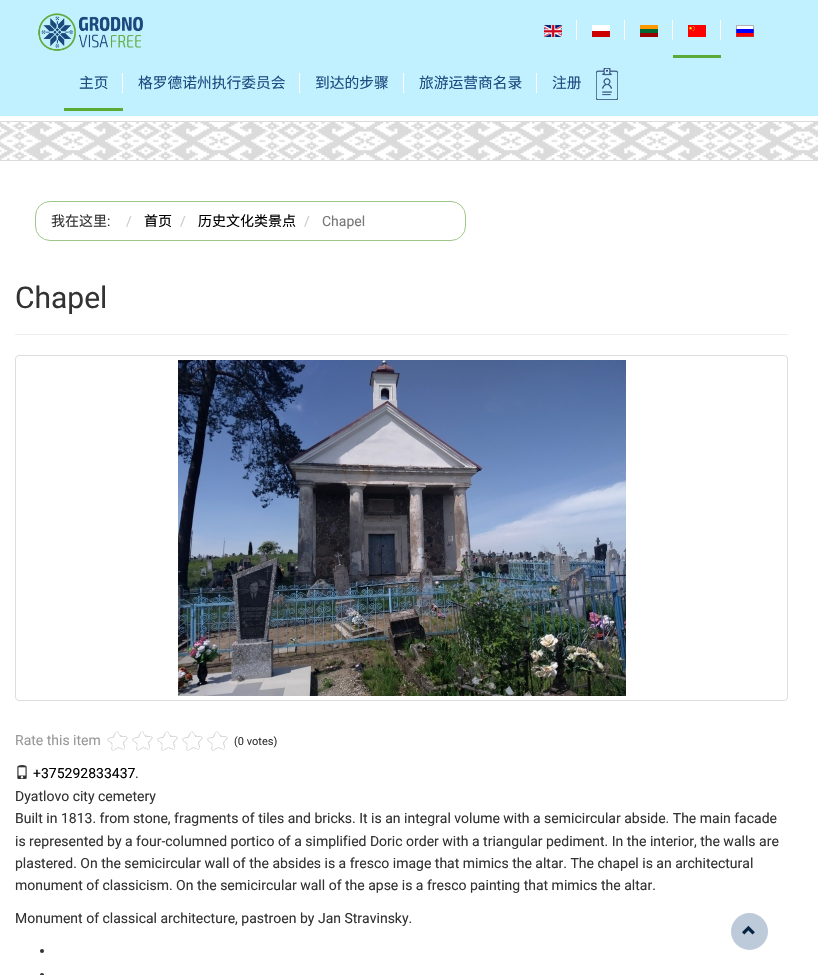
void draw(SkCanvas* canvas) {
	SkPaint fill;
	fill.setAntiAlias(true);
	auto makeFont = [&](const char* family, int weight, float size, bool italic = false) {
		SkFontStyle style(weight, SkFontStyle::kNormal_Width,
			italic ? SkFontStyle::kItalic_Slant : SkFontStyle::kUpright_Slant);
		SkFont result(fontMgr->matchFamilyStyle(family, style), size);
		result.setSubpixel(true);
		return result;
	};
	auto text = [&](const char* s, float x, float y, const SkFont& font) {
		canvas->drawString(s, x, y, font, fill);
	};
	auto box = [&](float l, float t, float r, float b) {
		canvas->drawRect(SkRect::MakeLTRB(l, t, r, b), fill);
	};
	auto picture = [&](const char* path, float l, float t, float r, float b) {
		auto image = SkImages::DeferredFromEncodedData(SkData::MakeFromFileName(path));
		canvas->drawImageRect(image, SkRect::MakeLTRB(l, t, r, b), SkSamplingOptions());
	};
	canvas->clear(0xFFFFFFFF);
	fill.setColor(0xFFC1F1FF);
	box(0, 0, 818, 116);
	picture("image0.png", 38, 13, 143, 51);
	picture("image1.png", 544, 25, 562, 37);
	fill.setColor(0xFFFFFFFF);
	box(576, 20, 577, 40);
	picture("image2.png", 592, 25, 610, 37);
	box(624, 20, 625, 40);
	picture("image3.png", 640, 25, 658, 37);
	box(672, 20, 673, 40);
	fill.setColor(0xFF5BAA38);
	box(673, 55, 721, 58);
	picture("image4.png", 688, 25, 706, 37);
	fill.setColor(0xFFFFFFFF);
	box(720, 20, 721, 40);
	picture("image5.png", 736, 25, 754, 37);
	fill.setColor(0xFF5BAA38);
	box(64, 108, 123, 111);
	fill.setColor(0xFFFFFFFF);
	box(122, 73, 123, 93);
	box(299, 73, 300, 93);
	box(403, 73, 404, 93);
	box(536, 73, 537, 93);
	picture("image6.png", 596, 68, 618, 100);
	picture("image7.png", 0, 122, 818, 160);
	fill.setColor(0xFFDCDBDB);
	box(0, 121, 818, 122);
	box(0, 160, 818, 161);
	fill.setStyle(SkPaint::kStroke_Style);
	fill.setStrokeWidth(1);
	fill.setColor(0xFF9EC88B);
	canvas->drawRoundRect(SkRect::MakeLTRB(35.5f, 201.5f, 465.5f, 240.5f), 14.5f, 14.5f, fill);
	fill.setStyle(SkPaint::kFill_Style);
	fill.setColor(0xFFEEEEEE);
	box(15, 334, 788, 335);
	fill.setStyle(SkPaint::kStroke_Style);
	fill.setColor(0xFFDDDDDD);
	canvas->drawRoundRect(SkRect::MakeLTRB(15.5f, 355.5f, 787.5f, 700.5f), 3.5f, 3.5f, fill);
	picture("image8.png", 178, 360, 626, 696);
	picture("image9.png", 107, 731, 228, 751);
	picture("image10.png", 17, 765, 27, 779);
	fill.setStyle(SkPaint::kFill_Style);
	fill.setColor(0xFF333333);
	canvas->drawCircle(42, 951, 2, fill);
	canvas->drawCircle(42, 975, 2, fill);
	fill.setColor(0xFFBDCAD9);
	canvas->drawCircle(749.5f, 931.5f, 18.5f, fill);
	picture("image11.png", 742, 925, 755, 935);
	auto font1 = makeFont("Noto Sans CJK SC", 400, 14.75f);
	fill.setColor(0xFF1C4C7F);
	text("主页", 79, 88, font1);
	text("格罗德诺州执行委员会", 138, 88, font1);
	text("到达的步骤", 315, 88, font1);
	text("旅游运营商名录", 419, 88, font1);
	text("注册", 552, 88, font1);
	auto font2 = makeFont("Noto Sans CJK SC", 400, 14);
	fill.setColor(0xFF333333);
	text("我在这里", 51, 226, font2);
	auto font3 = makeFont("Roboto", 400, 14);
	text(":", 107, 226, font3);
	fill.setColor(0xFFCCCCCC);
	text("/", 126, 226, font3);
	fill.setColor(0xFF000000);
	text("首页", 144, 226, font2);
	fill.setColor(0xFFCCCCCC);
	text("/", 180, 226, font3);
	fill.setColor(0xFF000000);
	text("历史文化类景点", 198, 226, font2);
	fill.setColor(0xFFCCCCCC);
	text("/", 304, 226, font3);
	fill.setColor(0xFF777777);
	text("Chapel", 322, 226, font3);
	auto font4 = makeFont("Roboto", 400, 30);
	fill.setColor(0xFF333333);
	text("Chapel", 15, 308, font4);
	fill.setColor(0xFF999999);
	text("Rate this item", 15, 745, font3);
	auto font5 = makeFont("Roboto", 400, 11);
	fill.setColor(0xFF333333);
	text("(0 votes)", 234, 745, font5);
	fill.setColor(0xFF000000);
	text("+375292833437", 33, 778, font3);
	fill.setColor(0xFF333333);
	text(".", 135, 778, font3);
	text("Dyatlovo city cemetery", 15, 801, font3);
	text("Built in 1813. from stone, fragments of tiles and bricks. It is an integral volume with a semicircular abside. The main facade", 15, 823, font3);
	text("is represented by a four-columned portico of a simplified Doric order with a triangular pediment. In the interior, the walls are", 15, 846, font3);
	text("plastered. On the semicircular wall of the absides is a fresco image that mimics the altar. The chapel is an architectural", 15, 868, font3);
	text("monument of classicism. On the semicircular wall of the apse is a fresco painting that mimics the altar.", 15, 890, font3);
	text("Monument of classical architecture, pastroen by Jan Stravinsky.", 15, 923, font3);
}
